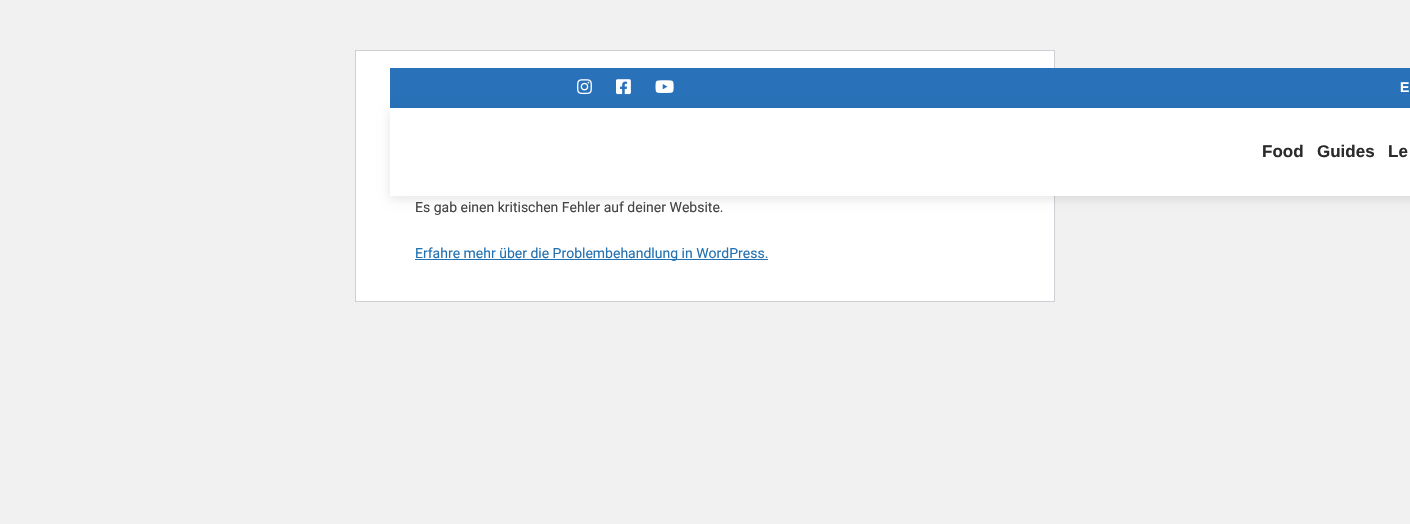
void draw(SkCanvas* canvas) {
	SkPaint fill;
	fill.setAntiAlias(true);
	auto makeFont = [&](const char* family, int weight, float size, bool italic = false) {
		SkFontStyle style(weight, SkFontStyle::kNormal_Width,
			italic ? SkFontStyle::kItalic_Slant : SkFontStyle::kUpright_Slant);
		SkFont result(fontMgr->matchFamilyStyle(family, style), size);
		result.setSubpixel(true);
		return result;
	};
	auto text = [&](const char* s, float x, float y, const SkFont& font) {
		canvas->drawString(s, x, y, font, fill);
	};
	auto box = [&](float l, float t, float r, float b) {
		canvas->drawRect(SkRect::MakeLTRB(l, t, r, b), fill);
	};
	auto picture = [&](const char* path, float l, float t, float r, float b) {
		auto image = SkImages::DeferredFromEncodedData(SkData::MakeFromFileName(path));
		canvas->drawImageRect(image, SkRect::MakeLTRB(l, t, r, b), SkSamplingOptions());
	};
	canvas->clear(0xFFF1F1F1);
	fill.setColor(0xFFFFFFFF);
	canvas->drawRect(SkRect::MakeLTRB(355.5f, 50.5f, 1054.5f, 301.5f), fill);
	fill.setStyle(SkPaint::kStroke_Style);
	fill.setStrokeWidth(1);
	fill.setColor(0xFFCCD0D4);
	canvas->drawRect(SkRect::MakeLTRB(355.5f, 50.5f, 1054.5f, 301.5f), fill);
	fill.setStyle(SkPaint::kFill_Style);
	fill.setColor(0xFF2971B8);
	box(390, 68, 1410, 108);
	picture("image0.png", 577, 79, 592, 95);
	picture("image1.png", 616, 79, 631, 95);
	picture("image2.png", 655, 80, 674, 93);
	fill.setColor(0x1A000000);
	fill.setMaskFilter(SkMaskFilter::MakeBlur(kNormal_SkBlurStyle, 5));
	canvas->drawRect(SkRect::MakeLTRB(390, 111, 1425, 199), fill);
	fill.setMaskFilter(nullptr);
	fill.setColor(0xFFFFFFFF);
	box(390, 108, 1410, 196);
	fill.setColor(0xFF2271B1);
	box(415, 259, 768, 260);
	auto font1 = makeFont("Liberation Sans", 700, 14);
	fill.setColor(0xFFFFFFFF);
	text("E", 1400, 92, font1);
	auto font2 = makeFont("Liberation Sans", 700, 17);
	fill.setColor(0xFF2B2B2B);
	text("Food", 1262, 157, font2);
	text("Guides", 1317, 157, font2);
	text("Le", 1388, 157, font2);
	auto font3 = makeFont("Roboto", 400, 14);
	fill.setColor(0xFF444444);
	text("Es gab einen kritischen Fehler auf deiner Website.", 415, 212, font3);
	fill.setColor(0xFF2271B1);
	text("Erfahre mehr über die Problembehandlung in WordPress.", 415, 258, font3);
}
